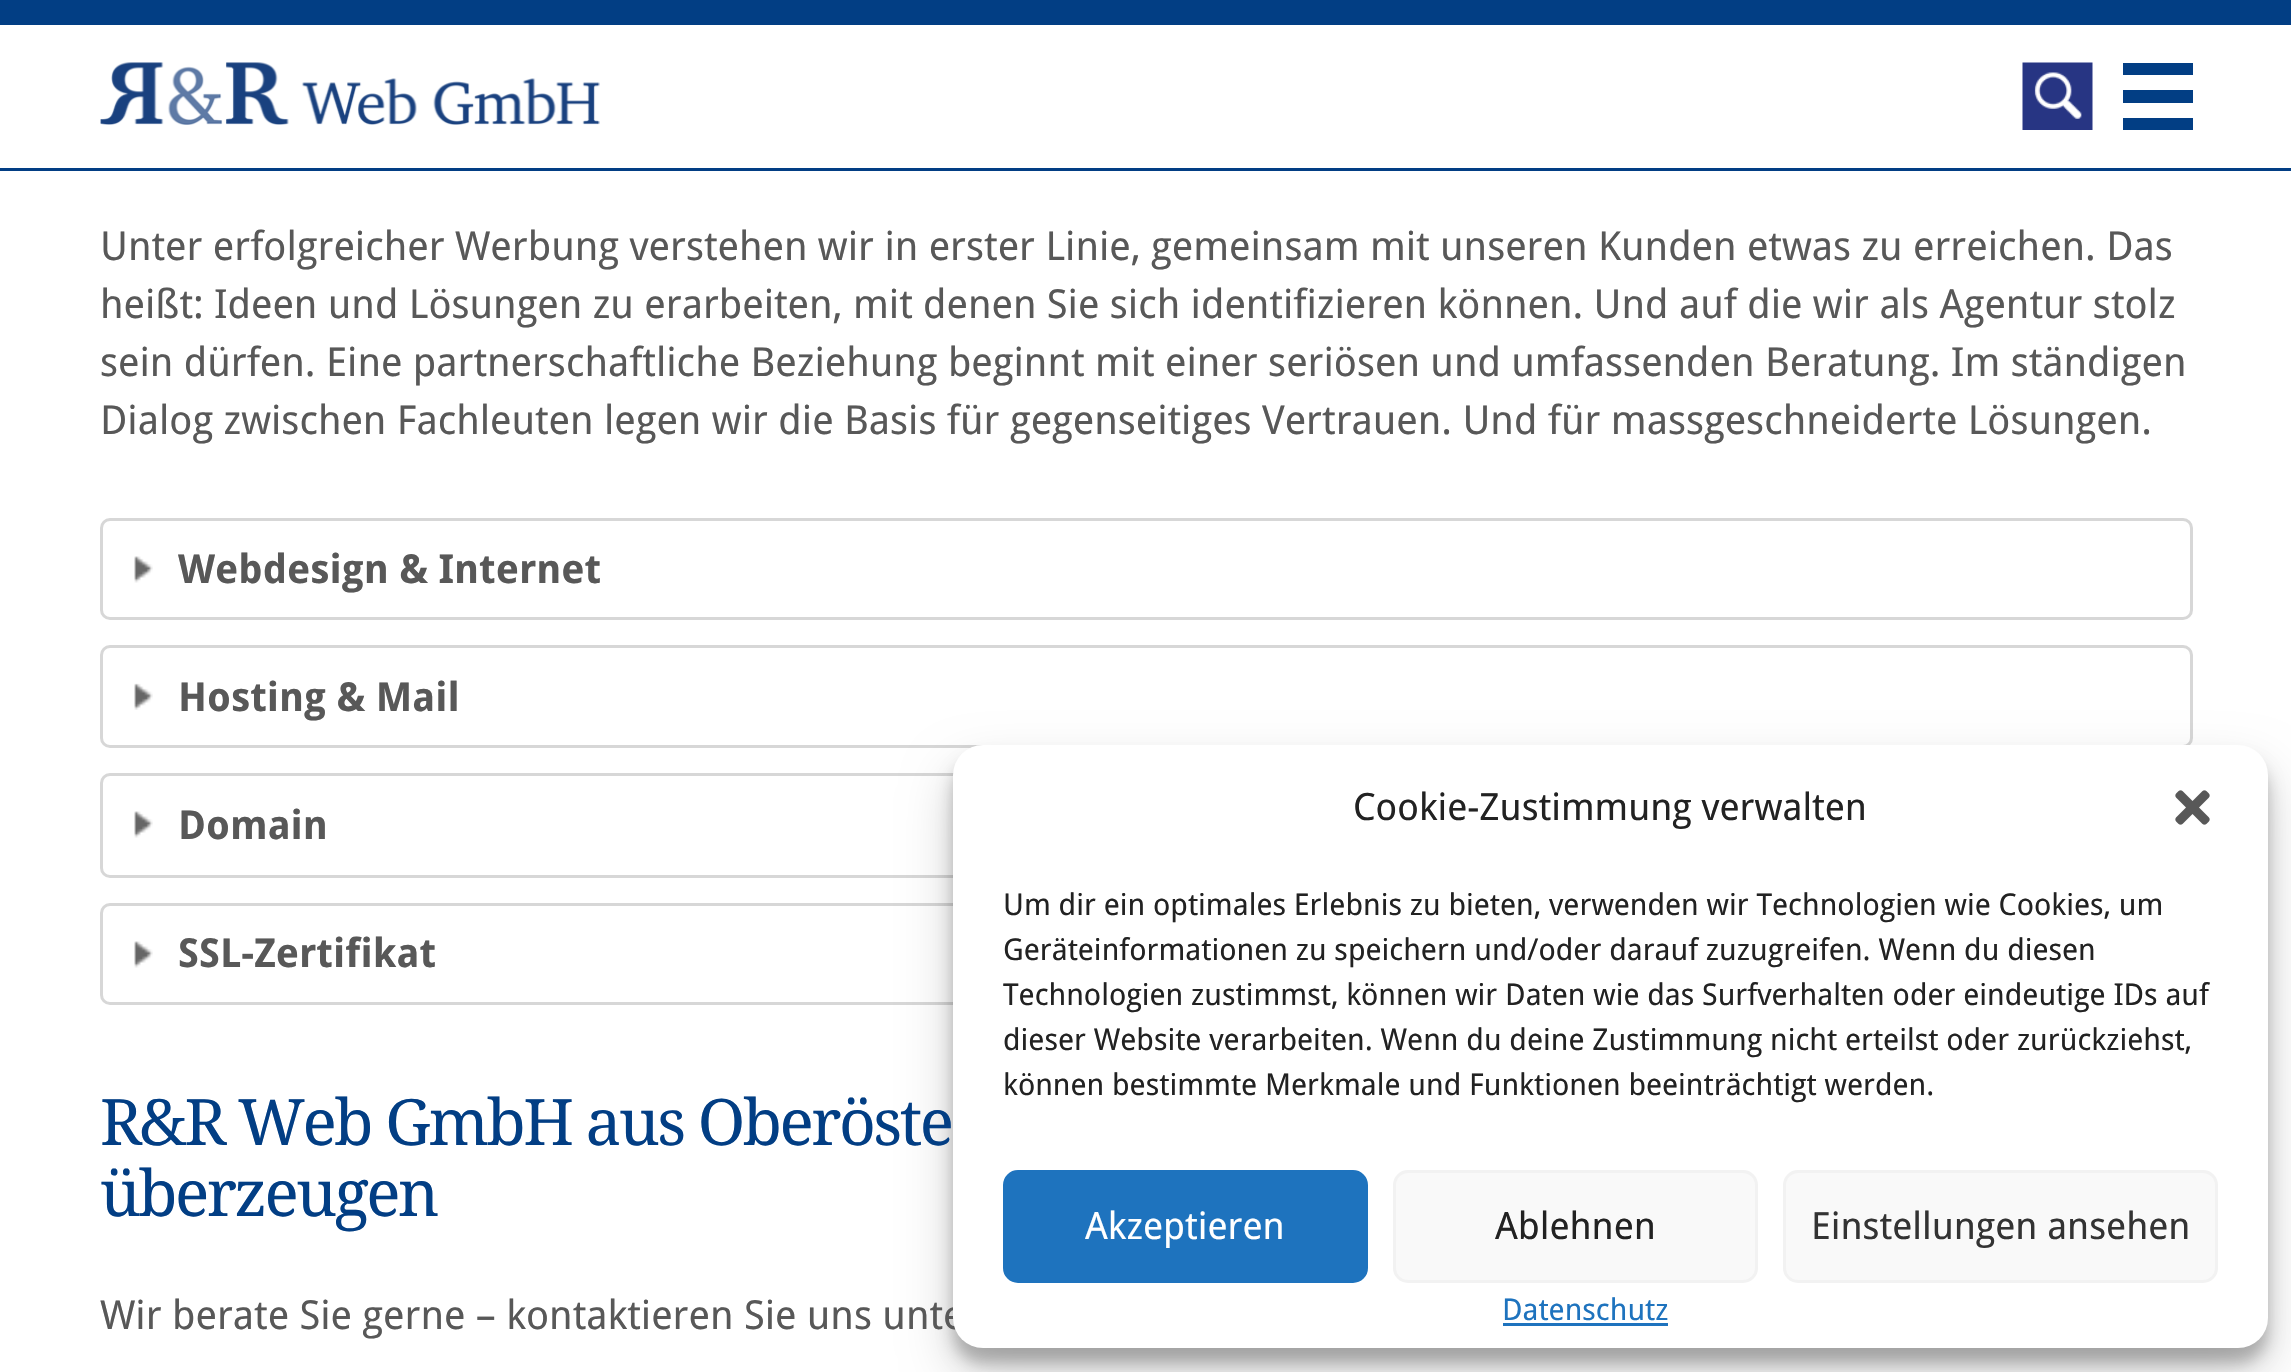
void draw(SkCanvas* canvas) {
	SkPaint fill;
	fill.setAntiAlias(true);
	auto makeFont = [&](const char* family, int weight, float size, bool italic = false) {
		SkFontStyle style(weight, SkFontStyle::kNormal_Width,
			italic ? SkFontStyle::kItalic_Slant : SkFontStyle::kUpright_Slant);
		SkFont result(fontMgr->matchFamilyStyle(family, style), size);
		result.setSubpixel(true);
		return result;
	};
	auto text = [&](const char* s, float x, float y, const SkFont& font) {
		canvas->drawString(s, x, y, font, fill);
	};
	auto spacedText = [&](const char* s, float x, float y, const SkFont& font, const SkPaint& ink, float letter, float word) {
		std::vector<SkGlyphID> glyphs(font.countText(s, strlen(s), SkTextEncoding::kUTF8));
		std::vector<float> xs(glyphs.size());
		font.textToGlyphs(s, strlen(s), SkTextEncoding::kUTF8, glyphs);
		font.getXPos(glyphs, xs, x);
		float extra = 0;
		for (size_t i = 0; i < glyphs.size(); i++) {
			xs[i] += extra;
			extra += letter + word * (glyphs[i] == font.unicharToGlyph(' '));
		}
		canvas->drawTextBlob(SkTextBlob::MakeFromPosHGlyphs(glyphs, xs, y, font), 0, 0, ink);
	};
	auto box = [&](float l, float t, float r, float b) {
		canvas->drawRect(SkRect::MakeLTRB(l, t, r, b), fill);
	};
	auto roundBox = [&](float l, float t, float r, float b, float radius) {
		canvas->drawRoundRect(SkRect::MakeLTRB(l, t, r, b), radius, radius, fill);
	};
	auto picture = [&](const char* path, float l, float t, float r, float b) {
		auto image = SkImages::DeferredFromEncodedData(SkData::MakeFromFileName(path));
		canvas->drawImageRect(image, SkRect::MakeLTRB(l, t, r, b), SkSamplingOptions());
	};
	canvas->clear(0xFFFFFFFF);
	fill.setColor(0xFF023E84);
	box(0, 0, 2291, 25);
	box(0, 168, 2291, 171);
	picture("image0.png", 100, 62, 600, 125);
	picture("image1.png", 2022, 62, 2093, 130);
	box(2123, 63, 2193, 75);
	box(2123, 118, 2193, 130);
	box(2123, 90, 2193, 103);
	picture("image2.png", 134, 556, 153, 583);
	fill.setStyle(SkPaint::kStroke_Style);
	fill.setStrokeWidth(3);
	fill.setColor(0xFFD7D7D7);
	canvas->drawRoundRect(SkRect::MakeLTRB(101.5f, 519.5f, 2191.5f, 618.5f), 8.5f, 8.5f, fill);
	picture("image3.png", 134, 683, 153, 710);
	canvas->drawRoundRect(SkRect::MakeLTRB(101.5f, 646.5f, 2191.5f, 746.5f), 8.5f, 8.5f, fill);
	picture("image2.png", 134, 811, 153, 838);
	canvas->drawRoundRect(SkRect::MakeLTRB(101.5f, 774.5f, 2191.5f, 876.5f), 8.5f, 8.5f, fill);
	picture("image2.png", 134, 941, 153, 968);
	canvas->drawRoundRect(SkRect::MakeLTRB(101.5f, 904.5f, 2191.5f, 1003.5f), 8.5f, 8.5f, fill);
	fill.setStyle(SkPaint::kFill_Style);
	fill.setColor(0x3B000000);
	fill.setMaskFilter(SkMaskFilter::MakeBlur(kNormal_SkBlurStyle, 7.5f));
	canvas->drawRoundRect(SkRect::MakeLTRB(953, 760, 2268, 1363), 30, 30, fill);
	fill.setMaskFilter(nullptr);
	fill.setColor(0x30000000);
	fill.setMaskFilter(SkMaskFilter::MakeBlur(kNormal_SkBlurStyle, 25));
	canvas->drawRoundRect(SkRect::MakeLTRB(953, 770, 2268, 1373), 30, 30, fill);
	fill.setMaskFilter(nullptr);
	auto font1 = makeFont("Droid Sans", 400, 40);
	fill.setColor(0xFF585858);
	text("Unter erfolgreicher Werbung verstehen wir in erster Linie, gemeinsam mit unseren Kunden etwas zu erreichen. Das", 100, 260, font1);
	text("heißt: Ideen und Lösungen zu erarbeiten, mit denen Sie sich identifizieren können. Und auf die wir als Agentur stolz", 100, 318, font1);
	text("sein dürfen. Eine partnerschaftliche Beziehung beginnt mit einer seriösen und umfassenden Beratung. Im ständigen", 100, 376, font1);
	text("Dialog zwischen Fachleuten legen wir die Basis für gegenseitiges Vertrauen. Und für massgeschneiderte Lösungen.", 100, 434, font1);
	auto font2 = makeFont("Droid Sans", 700, 40);
	text("Webdesign & Internet", 178, 583, font2);
	text("Hosting & Mail", 178, 711, font2);
	text("Domain", 178, 839, font2);
	text("SSL-Zertifikat", 178, 967, font2);
	auto font3 = makeFont("Droid Serif", 400, 64);
	fill.setColor(0xFF023E84);
	spacedText("R&R Web GmbH aus Oberöste", 100, 1145, font3, fill, -2.5f, 0);
	spacedText("überzeugen", 100, 1216, font3, fill, -2.5f, 0);
	fill.setColor(0xFF585858);
	text("Wir berate Sie gerne – kontaktieren Sie uns unte", 100, 1329, font1);
	fill.setColor(0xFFFFFFFF);
	roundBox(953, 745, 2268, 1348, 30);
	auto font4 = makeFont("Droid Sans", 400, 37.5f);
	fill.setColor(0xFF222222);
	text("Cookie-Zustimmung verwalten", 1353, 820, font4);
	picture("image4.png", 2175, 790, 2210, 825);
	auto font5 = makeFont("Droid Sans", 400, 30);
	text("Um dir ein optimales Erlebnis zu bieten, verwenden wir Technologien wie Cookies, um", 1003, 915, font5);
	text("Geräteinformationen zu speichern und/oder darauf zuzugreifen. Wenn du diesen", 1003, 960, font5);
	canvas->save();
	canvas->clipRect(SkRect::MakeLTRB(1003, 883, 2218, 1120));
	text("Technologien zustimmst, können wir Daten wie das Surfverhalten oder eindeutige IDs auf", 1003, 1005, font5);
	canvas->restore();
	text("dieser Website verarbeiten. Wenn du deine Zustimmung nicht erteilst oder zurückziehst,", 1003, 1050, font5);
	text("können bestimmte Merkmale und Funktionen beeinträchtigt werden.", 1003, 1095, font5);
	fill.setColor(0xFF1E73BE);
	canvas->drawRoundRect(SkRect::MakeLTRB(1004.5f, 1171.5f, 1366.5f, 1281.5f), 13.5f, 13.5f, fill);
	fill.setStyle(SkPaint::kStroke_Style);
	canvas->drawRoundRect(SkRect::MakeLTRB(1004.5f, 1171.5f, 1366.5f, 1281.5f), 13.5f, 13.5f, fill);
	fill.setStyle(SkPaint::kFill_Style);
	fill.setColor(0xFFFFFFFF);
	text("Akzeptieren", 1085, 1239, font4);
	fill.setColor(0xFFF9F9F9);
	canvas->drawRoundRect(SkRect::MakeLTRB(1394.5f, 1171.5f, 1756.5f, 1281.5f), 13.5f, 13.5f, fill);
	fill.setStyle(SkPaint::kStroke_Style);
	fill.setColor(0xFFF2F2F2);
	canvas->drawRoundRect(SkRect::MakeLTRB(1394.5f, 1171.5f, 1756.5f, 1281.5f), 13.5f, 13.5f, fill);
	fill.setStyle(SkPaint::kFill_Style);
	fill.setColor(0xFF222222);
	text("Ablehnen", 1495, 1239, font4);
	fill.setColor(0xFFF9F9F9);
	canvas->drawRoundRect(SkRect::MakeLTRB(1784.5f, 1171.5f, 2216.5f, 1281.5f), 13.5f, 13.5f, fill);
	fill.setStyle(SkPaint::kStroke_Style);
	fill.setColor(0xFFF2F2F2);
	canvas->drawRoundRect(SkRect::MakeLTRB(1784.5f, 1171.5f, 2216.5f, 1281.5f), 13.5f, 13.5f, fill);
	fill.setStyle(SkPaint::kFill_Style);
	fill.setColor(0xFF333333);
	text("Einstellungen ansehen", 1811, 1239, font4);
	fill.setColor(0xFF1E73BE);
	text("Datenschutz", 1502, 1320, font5);
	box(1503, 1323, 1668, 1326);
}
